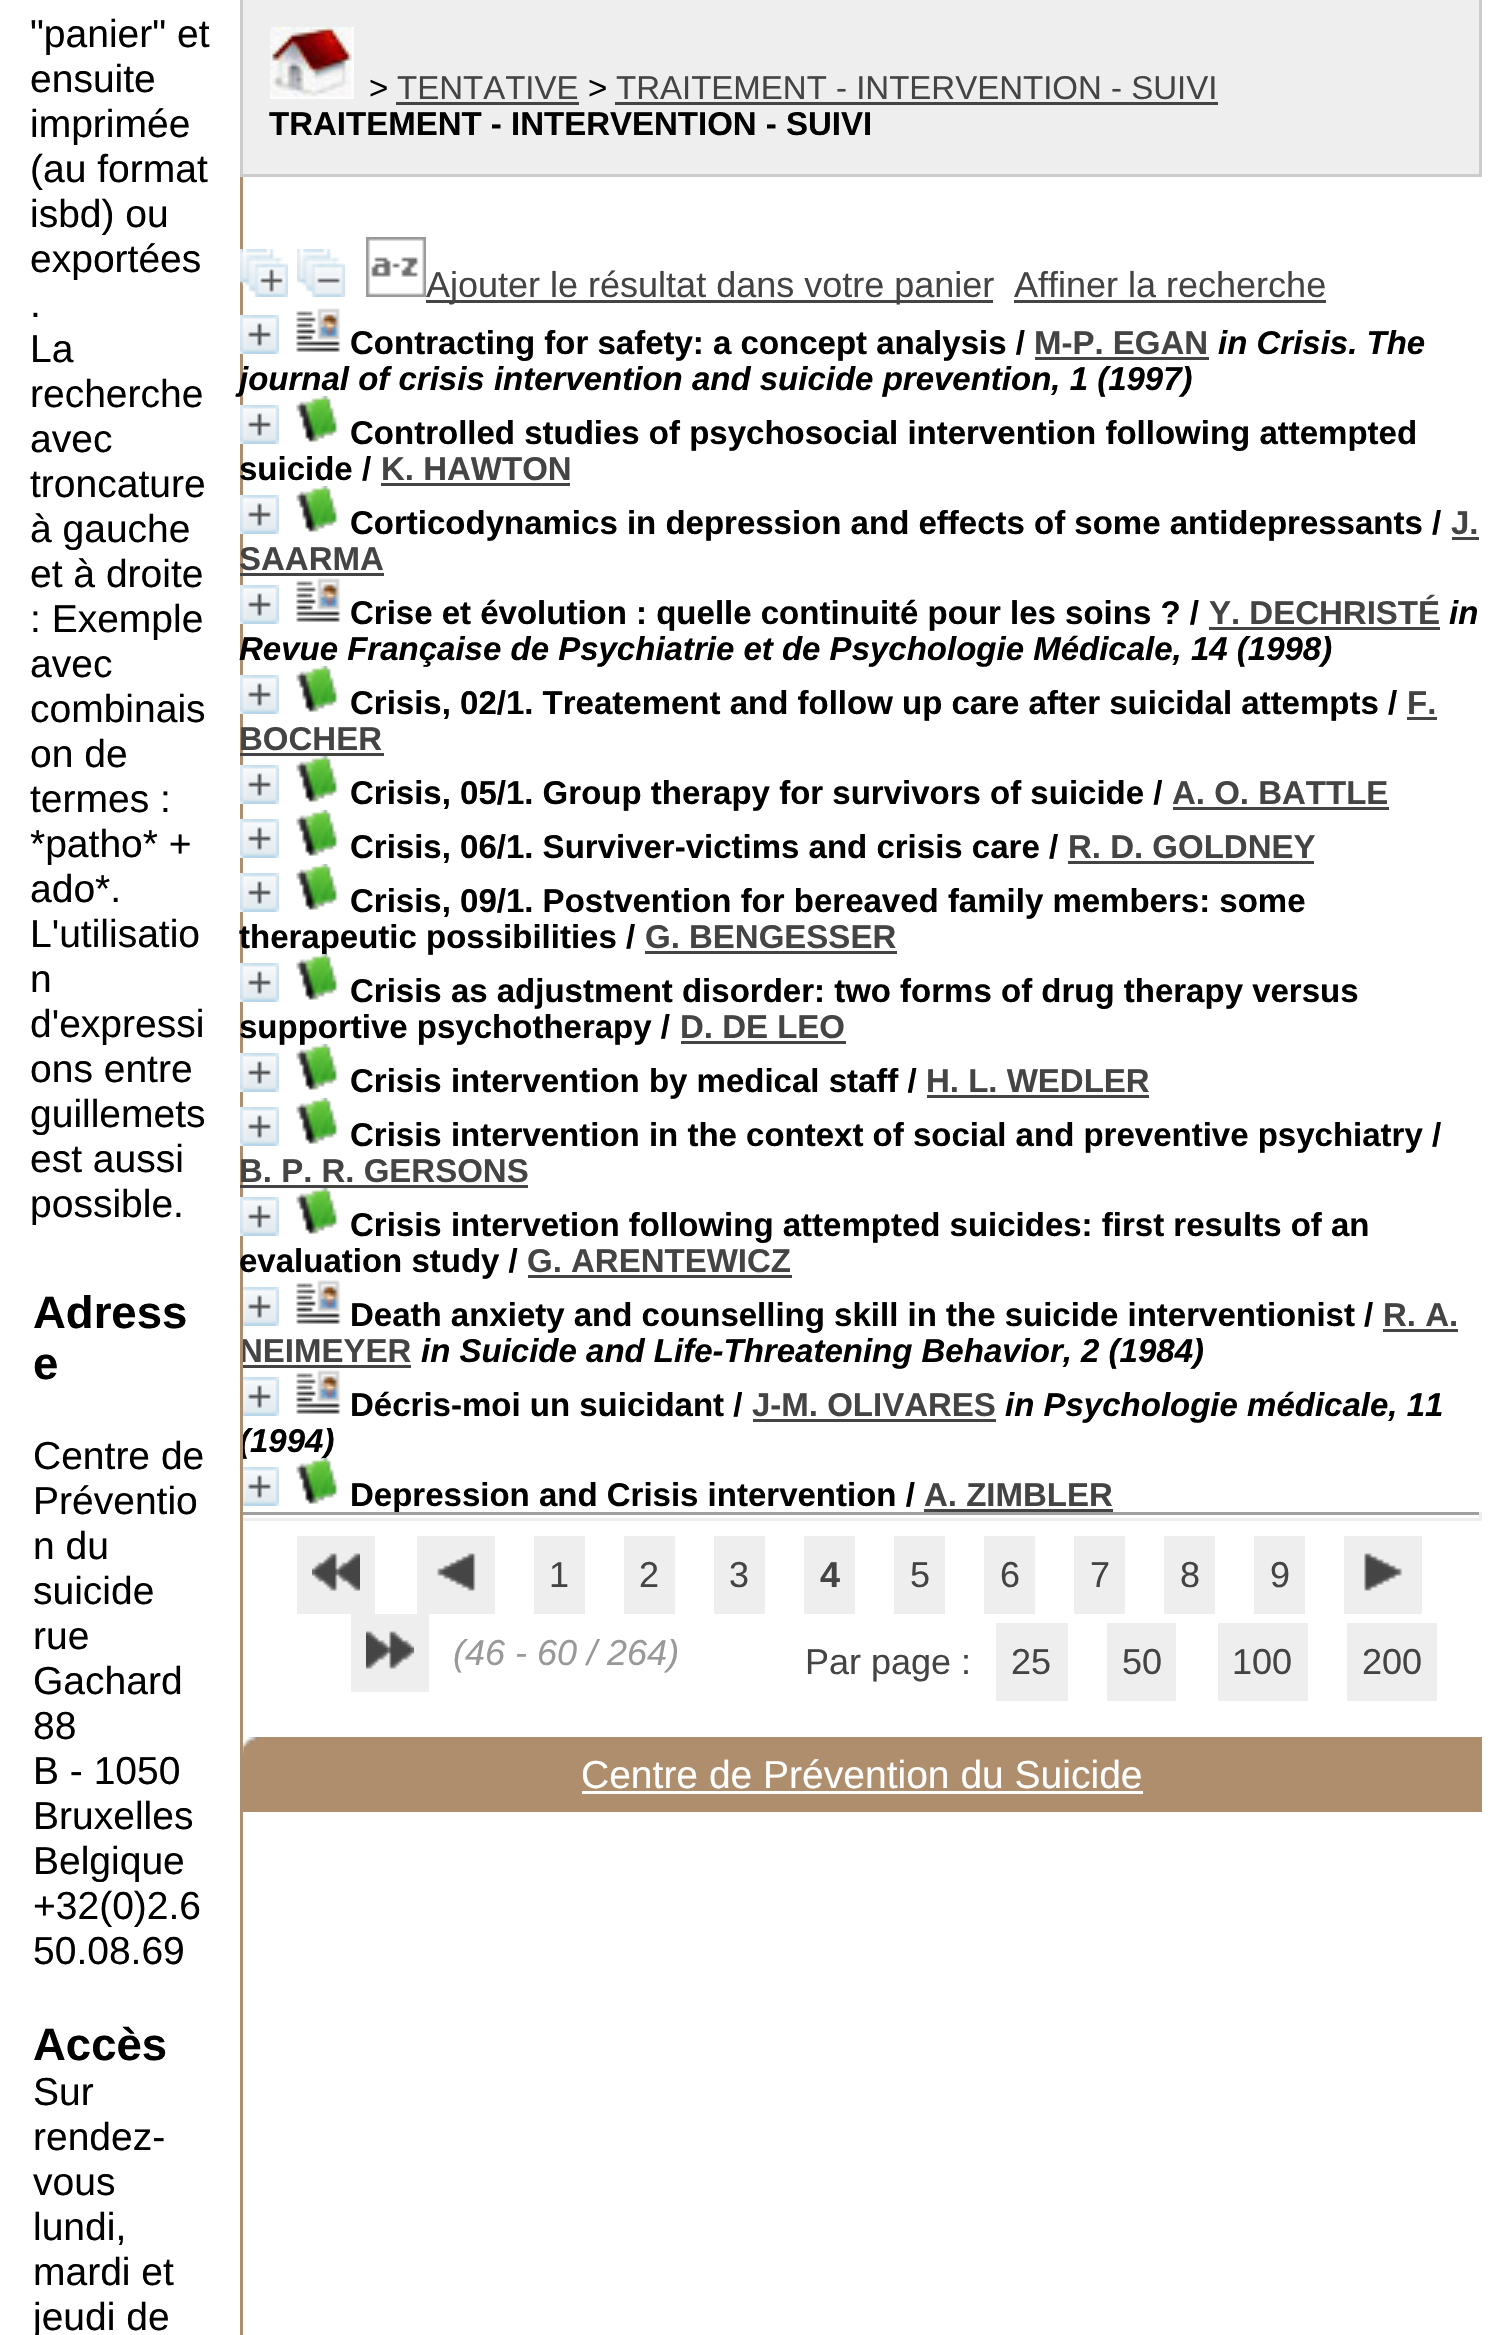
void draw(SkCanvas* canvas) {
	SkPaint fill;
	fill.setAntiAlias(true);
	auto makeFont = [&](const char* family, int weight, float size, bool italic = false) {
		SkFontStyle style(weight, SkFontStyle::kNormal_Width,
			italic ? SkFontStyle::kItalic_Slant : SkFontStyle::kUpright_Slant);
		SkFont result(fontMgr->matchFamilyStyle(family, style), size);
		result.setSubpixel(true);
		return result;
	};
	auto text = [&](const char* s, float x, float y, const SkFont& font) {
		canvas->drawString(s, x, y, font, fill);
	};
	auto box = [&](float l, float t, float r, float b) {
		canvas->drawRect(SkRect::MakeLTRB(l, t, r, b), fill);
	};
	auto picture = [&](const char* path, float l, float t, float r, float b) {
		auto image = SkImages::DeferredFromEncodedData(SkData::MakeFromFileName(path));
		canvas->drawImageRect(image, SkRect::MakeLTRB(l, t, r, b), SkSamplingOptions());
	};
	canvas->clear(0xFFFFFFFF);
	fill.setColor(0xFFAF8E6D);
	box(240, 177, 243, 1272);
	fill.setColor(0xFFEEEEEE);
	canvas->drawRect(SkRect::MakeLTRB(241.5f, -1.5f, 1480.5f, 175.5f), fill);
	fill.setStyle(SkPaint::kStroke_Style);
	fill.setStrokeWidth(3);
	fill.setColor(0xFFCCCCCC);
	canvas->drawRect(SkRect::MakeLTRB(241.5f, -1.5f, 1480.5f, 175.5f), fill);
	picture("image0.png", 270, 27, 354, 99);
	fill.setStyle(SkPaint::kFill_Style);
	fill.setColor(0xFF444444);
	box(396, 102, 579, 105);
	box(615, 102, 1218, 105);
	picture("image1.png", 240, 249, 288, 297);
	picture("image2.png", 297, 249, 345, 297);
	picture("image3.png", 366, 237, 426, 297);
	box(426, 300, 993, 303);
	box(1014, 300, 1326, 303);
	picture("image4.png", 240, 315, 279, 354);
	picture("image5.png", 296, 308, 341, 352);
	box(1035, 357, 1209, 360);
	picture("image4.png", 240, 405, 279, 444);
	box(381, 483, 570, 486);
	picture("image4.png", 240, 495, 279, 534);
	picture("image6.png", 296, 486, 338, 532);
	box(1452, 537, 1479, 540);
	box(240, 573, 384, 576);
	picture("image4.png", 240, 585, 279, 624);
	picture("image5.png", 296, 578, 341, 622);
	box(1209, 627, 1440, 630);
	picture("image4.png", 240, 675, 279, 714);
	box(1407, 717, 1437, 720);
	box(240, 753, 384, 756);
	picture("image4.png", 240, 765, 279, 804);
	picture("image6.png", 296, 756, 338, 802);
	box(1173, 807, 1389, 810);
	picture("image4.png", 240, 819, 279, 858);
	picture("image6.png", 296, 810, 338, 856);
	box(1068, 861, 1314, 864);
	picture("image4.png", 240, 873, 279, 912);
	picture("image6.png", 296, 864, 338, 910);
	box(645, 951, 897, 954);
	picture("image4.png", 240, 963, 279, 1002);
	box(681, 1041, 846, 1044);
	picture("image4.png", 240, 1053, 279, 1092);
	box(927, 1095, 1149, 1098);
	picture("image4.png", 240, 1107, 279, 1146);
	picture("image6.png", 296, 1098, 338, 1144);
	box(240, 1185, 528, 1188);
	picture("image4.png", 240, 1197, 279, 1236);
	picture("image6.png", 296, 1188, 338, 1234);
	box(528, 1275, 792, 1278);
	picture("image9.png", 243, 1287, 279, 1326);
	picture("image5.png", 296, 1280, 341, 1324);
	box(1383, 1329, 1458, 1332);
	box(240, 1365, 411, 1368);
	picture("image9.png", 243, 1377, 279, 1416);
	picture("image5.png", 296, 1370, 341, 1414);
	box(753, 1419, 996, 1422);
	picture("image9.png", 243, 1467, 279, 1506);
	box(924, 1509, 1113, 1512);
	fill.setColor(0xFFEEEEEE);
	box(297, 1536, 375, 1614);
	picture("image11.png", 312, 1553, 360, 1591);
	box(417, 1536, 495, 1614);
	picture("image12.png", 437, 1553, 476, 1591);
	box(534, 1536, 585, 1614);
	box(624, 1536, 675, 1614);
	box(714, 1536, 765, 1614);
	box(804, 1536, 855, 1614);
	box(894, 1536, 945, 1614);
	box(984, 1536, 1035, 1614);
	box(1074, 1536, 1125, 1614);
	box(1164, 1536, 1215, 1614);
	box(1254, 1536, 1305, 1614);
	box(1344, 1536, 1422, 1614);
	picture("image13.png", 1364, 1553, 1403, 1591);
	box(351, 1614, 429, 1692);
	picture("image14.png", 366, 1631, 414, 1669);
	box(996, 1623, 1068, 1701);
	box(1107, 1623, 1176, 1701);
	box(1218, 1623, 1308, 1701);
	box(1347, 1623, 1437, 1701);
	fill.setColor(0xFFAF8E6D);
	box(243, 1737, 1482, 1812);
	picture("image15.png", 243, 1737, 261, 1760);
	fill.setColor(0xFFFFFFFF);
	box(582, 1791, 1143, 1794);
	auto font1 = makeFont("Liberation Sans", 400, 39);
	fill.setColor(0xFF000000);
	text("\"panier\" et", 30, 47, font1);
	text("ensuite", 30, 92, font1);
	text("imprimée", 30, 137, font1);
	text("(au format", 30, 182, font1);
	text("isbd) ou", 30, 227, font1);
	text("exportées", 30, 272, font1);
	text(".", 30, 317, font1);
	text("La", 30, 362, font1);
	text("recherche", 30, 407, font1);
	text("avec", 30, 452, font1);
	text("troncature", 30, 497, font1);
	text("à gauche", 30, 542, font1);
	text("et à droite", 30, 587, font1);
	text(": Exemple", 30, 632, font1);
	text("avec", 30, 677, font1);
	text("combinais", 30, 722, font1);
	text("on de", 30, 767, font1);
	text("termes :", 30, 812, font1);
	text("*patho* +", 30, 857, font1);
	text("ado*.", 30, 902, font1);
	text("L'utilisatio", 30, 947, font1);
	text("n", 30, 992, font1);
	text("d'expressi", 30, 1037, font1);
	text("ons entre", 30, 1082, font1);
	text("guillemets", 30, 1127, font1);
	text("est aussi", 30, 1172, font1);
	text("possible.", 30, 1217, font1);
	auto font2 = makeFont("Liberation Sans", 400, 33);
	text(">", 369, 99, font2);
	fill.setColor(0xFF444444);
	text("TENTATIVE", 397, 99, font2);
	fill.setColor(0xFF000000);
	text(">", 588, 99, font2);
	fill.setColor(0xFF444444);
	text("TRAITEMENT - INTERVENTION - SUIVI", 616, 99, font2);
	auto font3 = makeFont("Liberation Sans", 700, 33);
	fill.setColor(0xFF000000);
	text("TRAITEMENT - INTERVENTION - SUIVI", 269, 135, font3);
	auto font4 = makeFont("Liberation Sans", 400, 36);
	fill.setColor(0xFF444444);
	text("Ajouter le résultat dans votre panier", 426, 297, font4);
	text("Affiner la recherche", 1014, 297, font4);
	fill.setColor(0xFF000000);
	text("Contracting for safety: a concept analysis /", 350, 354, font3);
	fill.setColor(0xFF444444);
	text("M-P. EGAN", 1034, 354, font3);
	auto font5 = makeFont("Liberation Sans", 700, 33, true);
	fill.setColor(0xFF000000);
	text("in Crisis. The", 1218, 354, font5);
	text("journal of crisis intervention and suicide prevention, 1 (1997)", 239, 390, font5);
	picture("image6.png", 296, 396, 338, 442);
	text("Controlled studies of psychosocial intervention following attempted", 350, 444, font3);
	text("suicide /", 239, 480, font3);
	fill.setColor(0xFF444444);
	text("K. HAWTON", 381, 480, font3);
	fill.setColor(0xFF000000);
	text("Corticodynamics in depression and effects of some antidepressants /", 350, 534, font3);
	fill.setColor(0xFF444444);
	text("J.", 1451, 534, font3);
	text("SAARMA", 239, 570, font3);
	fill.setColor(0xFF000000);
	text("Crise et évolution : quelle continuité pour les soins ? /", 350, 624, font3);
	fill.setColor(0xFF444444);
	text("Y. DECHRISTÉ", 1209, 624, font3);
	fill.setColor(0xFF000000);
	text("in", 1449, 624, font5);
	text("Revue Française de Psychiatrie et de Psychologie Médicale, 14 (1998)", 239, 660, font5);
	picture("image6.png", 296, 666, 338, 712);
	text("Crisis, 02/1. Treatement and follow up care after suicidal attempts /", 350, 714, font3);
	fill.setColor(0xFF444444);
	text("F.", 1407, 714, font3);
	text("BOCHER", 239, 750, font3);
	fill.setColor(0xFF000000);
	text("Crisis, 05/1. Group therapy for survivors of suicide /", 350, 804, font3);
	fill.setColor(0xFF444444);
	text("A. O. BATTLE", 1172, 804, font3);
	fill.setColor(0xFF000000);
	text("Crisis, 06/1. Surviver-victims and crisis care /", 350, 858, font3);
	fill.setColor(0xFF444444);
	text("R. D. GOLDNEY", 1068, 858, font3);
	fill.setColor(0xFF000000);
	text("Crisis, 09/1. Postvention for bereaved family members: some", 350, 912, font3);
	text("therapeutic possibilities /", 239, 948, font3);
	fill.setColor(0xFF444444);
	text("G. BENGESSER", 645, 948, font3);
	picture("image7.png", 296, 954, 338, 1000);
	fill.setColor(0xFF000000);
	text("Crisis as adjustment disorder: two forms of drug therapy versus", 350, 1002, font3);
	text("supportive psychotherapy /", 239, 1038, font3);
	fill.setColor(0xFF444444);
	text("D. DE LEO", 680, 1038, font3);
	picture("image8.png", 296, 1044, 338, 1090);
	fill.setColor(0xFF000000);
	text("Crisis intervention by medical staff /", 350, 1092, font3);
	fill.setColor(0xFF444444);
	text("H. L. WEDLER", 926, 1092, font3);
	fill.setColor(0xFF000000);
	text("Crisis intervention in the context of social and preventive psychiatry /", 350, 1146, font3);
	fill.setColor(0xFF444444);
	text("B. P. R. GERSONS", 239, 1182, font3);
	fill.setColor(0xFF000000);
	text("Crisis intervetion following attempted suicides: first results of an", 350, 1236, font3);
	text("evaluation study /", 239, 1272, font3);
	fill.setColor(0xFF444444);
	text("G. ARENTEWICZ", 527, 1272, font3);
	fill.setColor(0xFF000000);
	text("Death anxiety and counselling skill in the suicide interventionist /", 350, 1326, font3);
	fill.setColor(0xFF444444);
	text("R. A.", 1383, 1326, font3);
	text("NEIMEYER", 239, 1362, font3);
	fill.setColor(0xFF000000);
	text("in Suicide and Life-Threatening Behavior, 2 (1984)", 421, 1362, font5);
	text("Décris-moi un suicidant /", 350, 1416, font3);
	fill.setColor(0xFF444444);
	text("J-M. OLIVARES", 752, 1416, font3);
	fill.setColor(0xFF000000);
	text("in Psychologie médicale, 11", 1005, 1416, font5);
	text("(1994)", 239, 1452, font5);
	picture("image10.png", 296, 1458, 338, 1504);
	text("Depression and Crisis intervention /", 350, 1506, font3);
	fill.setColor(0xFF444444);
	text("A. ZIMBLER", 924, 1506, font3);
	fill.setColor(0xFF9F9F9F);
	box(240, 1512, 1482, 1515);
	fill.setColor(0xFFEEEEEE);
	box(1479, 1512, 1482, 1521);
	box(240, 1518, 1482, 1521);
	fill.setColor(0xFF444444);
	text("1", 549, 1587, font4);
	text("2", 639, 1587, font4);
	text("3", 729, 1587, font4);
	auto font6 = makeFont("Liberation Sans", 700, 36);
	text("4", 820, 1587, font6);
	text("5", 910, 1587, font4);
	text("6", 1000, 1587, font4);
	text("7", 1090, 1587, font4);
	text("8", 1180, 1587, font4);
	text("9", 1270, 1587, font4);
	auto font7 = makeFont("Liberation Sans", 400, 36, true);
	fill.setColor(0xFF999999);
	text("(46 - 60 / 264)", 453, 1665, font7);
	fill.setColor(0xFF444444);
	text("Par page :", 805, 1674, font4);
	text("25", 1011, 1674, font4);
	text("50", 1122, 1674, font4);
	text("100", 1232, 1674, font4);
	text("200", 1362, 1674, font4);
	fill.setColor(0xFFFFFFFF);
	text("Centre de Prévention du Suicide", 581, 1788, font1);
	fill.setColor(0xFFAF8E6D);
	box(240, 1272, 243, 2335);
	auto font8 = makeFont("Liberation Sans", 700, 45.5f);
	fill.setColor(0xFF000000);
	text("Adress", 33, 1328, font8);
	text("e", 33, 1379, font8);
	text("Centre de", 33, 1469, font1);
	text("Préventio", 33, 1514, font1);
	text("n du", 33, 1559, font1);
	text("suicide", 33, 1604, font1);
	text("rue", 33, 1649, font1);
	text("Gachard", 33, 1694, font1);
	text("88", 33, 1739, font1);
	text("B - 1050", 33, 1784, font1);
	text("Bruxelles", 33, 1829, font1);
	text("Belgique", 33, 1874, font1);
	text("+32(0)2.6", 33, 1919, font1);
	text("50.08.69", 33, 1964, font1);
	text("Accès", 33, 2060, font8);
	text("Sur", 33, 2105, font1);
	text("rendez-", 33, 2150, font1);
	text("vous", 33, 2195, font1);
	text("lundi,", 33, 2240, font1);
	text("mardi et", 33, 2285, font1);
	text("jeudi de", 33, 2330, font1);
}
